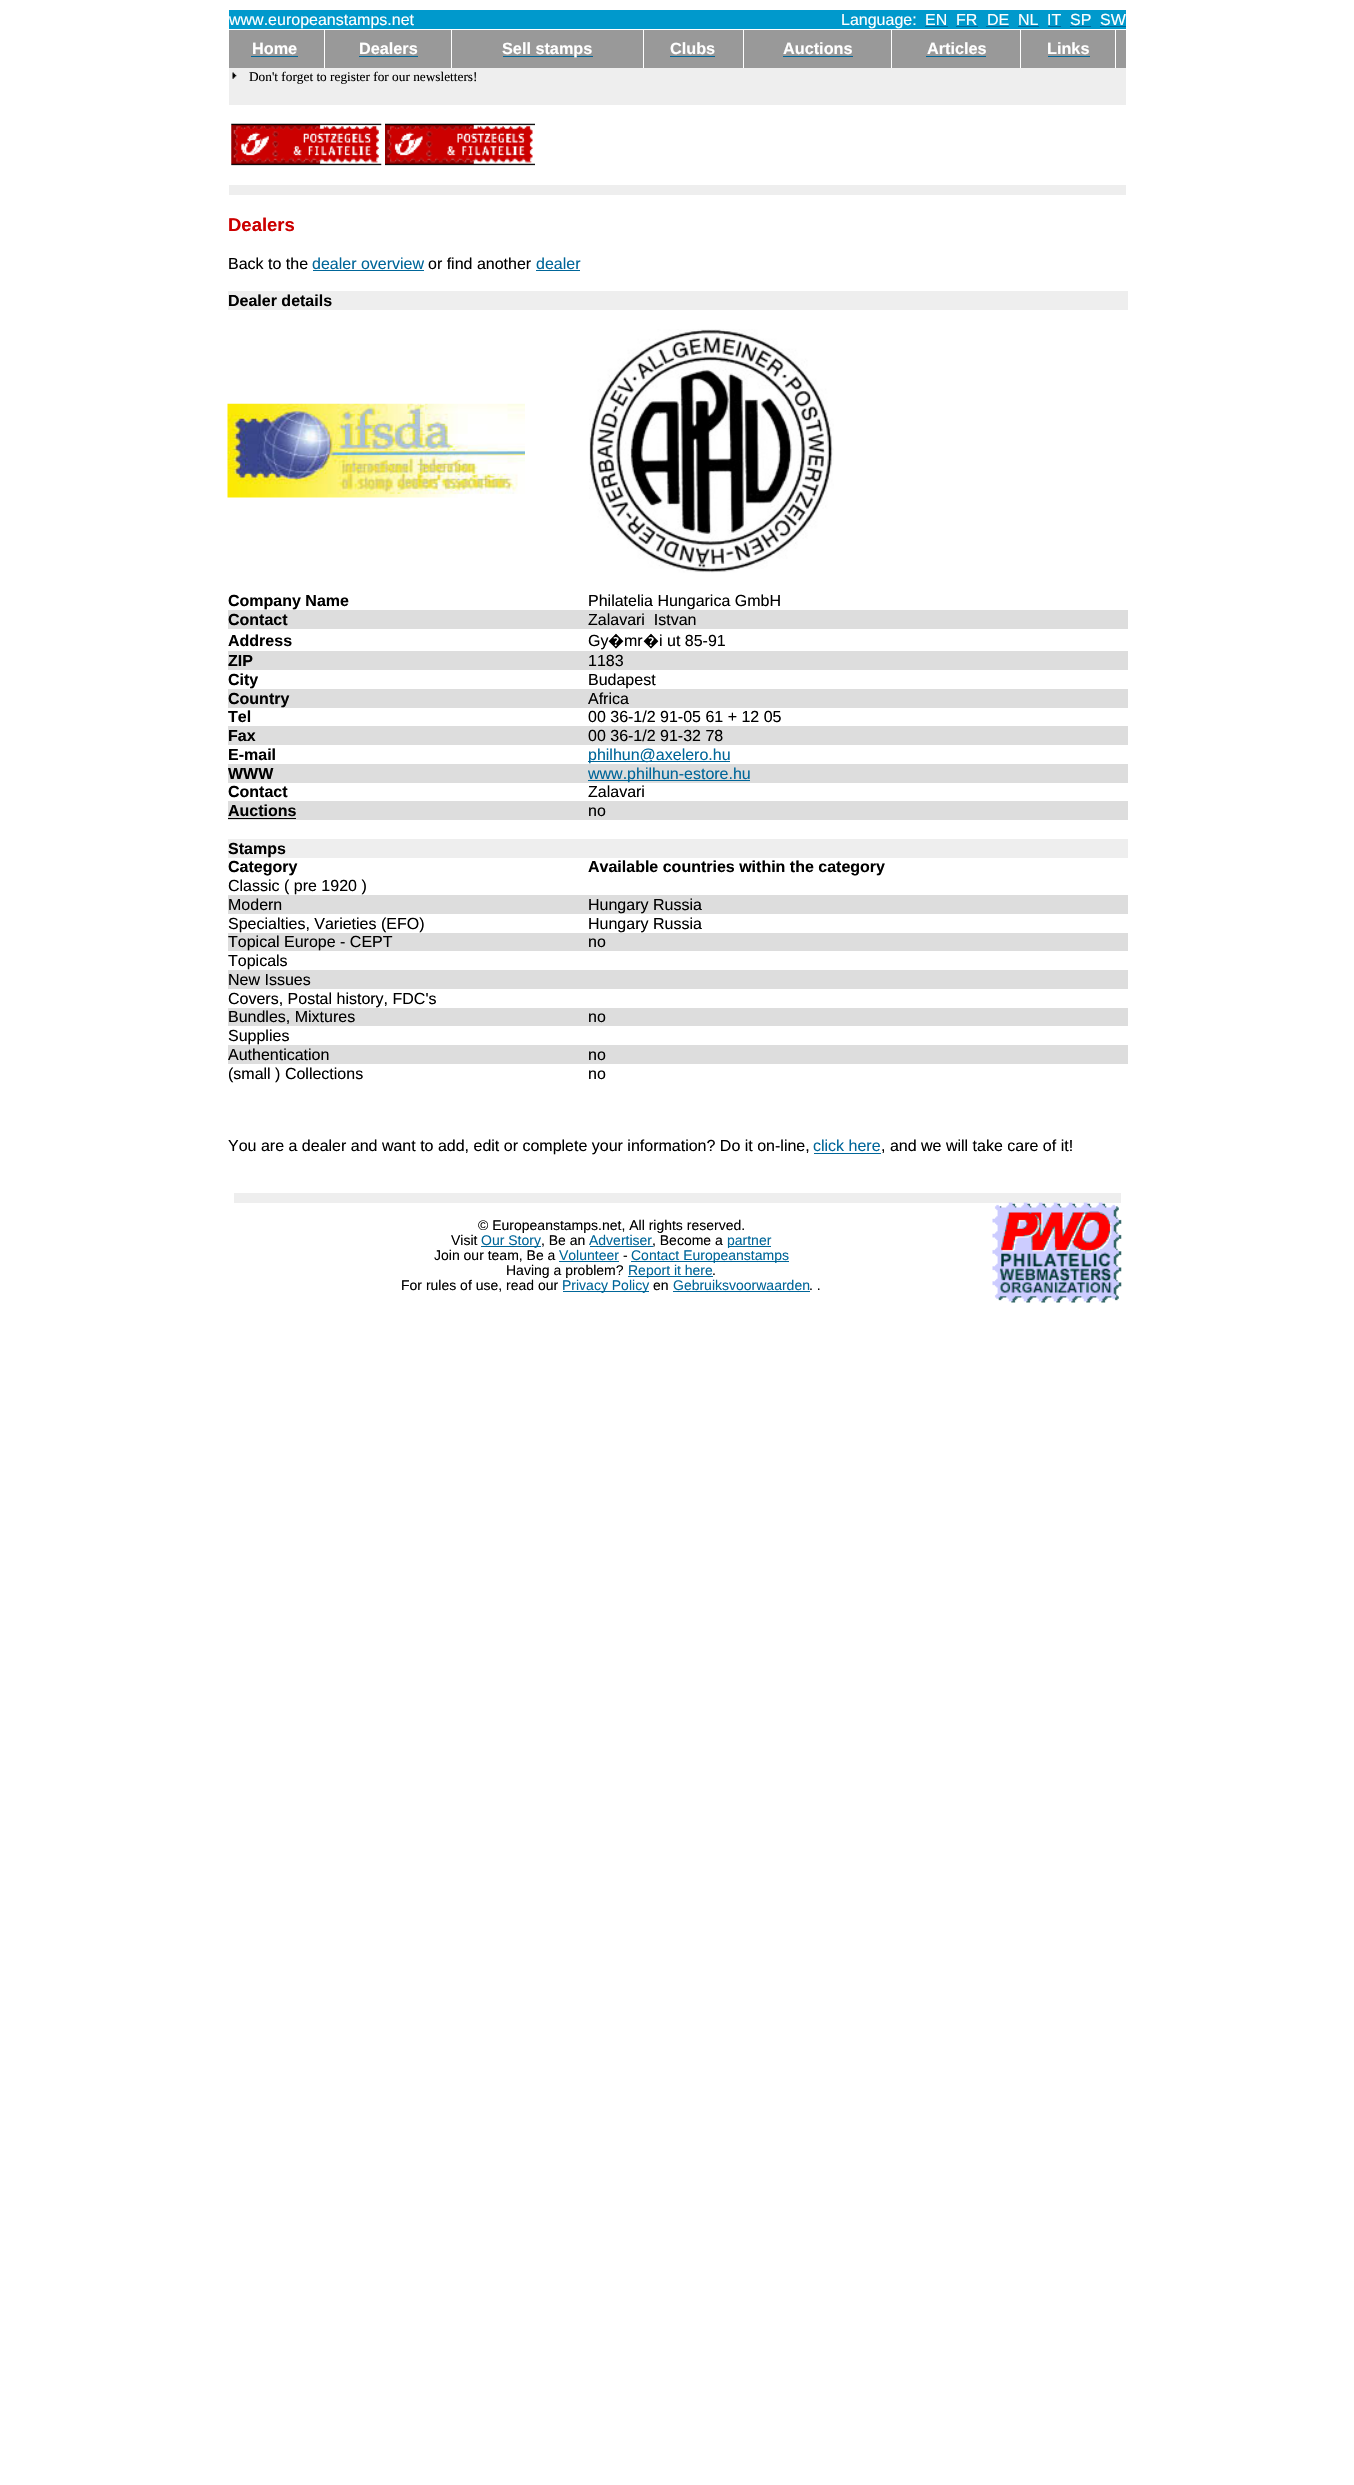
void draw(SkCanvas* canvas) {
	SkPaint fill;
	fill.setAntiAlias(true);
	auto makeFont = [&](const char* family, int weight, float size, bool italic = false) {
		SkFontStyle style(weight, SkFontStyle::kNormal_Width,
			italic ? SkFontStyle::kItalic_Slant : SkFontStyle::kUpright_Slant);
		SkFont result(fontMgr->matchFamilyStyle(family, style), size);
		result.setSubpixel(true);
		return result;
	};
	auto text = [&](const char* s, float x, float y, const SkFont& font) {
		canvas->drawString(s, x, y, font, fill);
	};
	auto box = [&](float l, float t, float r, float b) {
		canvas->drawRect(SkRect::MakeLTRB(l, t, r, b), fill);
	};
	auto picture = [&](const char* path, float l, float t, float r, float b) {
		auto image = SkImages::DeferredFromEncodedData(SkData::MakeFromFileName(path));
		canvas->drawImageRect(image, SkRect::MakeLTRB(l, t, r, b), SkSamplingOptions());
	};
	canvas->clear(0xFFFFFFFF);
	fill.setColor(0xFF0099CC);
	box(229, 10, 1126, 29);
	fill.setColor(0xFF006699);
	box(925, 26, 948, 27);
	box(956, 26, 978, 27);
	box(986, 26, 1009, 27);
	box(1018, 26, 1039, 27);
	box(1048, 26, 1061, 27);
	box(1070, 26, 1091, 27);
	box(1100, 26, 1126, 27);
	fill.setColor(0xFF999999);
	box(229, 30, 1126, 68);
	fill.setColor(0xFF006699);
	box(251, 56, 298, 57);
	fill.setColor(0xFFFFFFFF);
	box(324, 30, 325, 68);
	fill.setColor(0xFF006699);
	box(359, 56, 418, 57);
	fill.setColor(0xFFFFFFFF);
	box(451, 30, 452, 68);
	fill.setColor(0xFF006699);
	box(503, 56, 593, 57);
	fill.setColor(0xFFFFFFFF);
	box(643, 30, 644, 68);
	fill.setColor(0xFF006699);
	box(670, 56, 715, 57);
	fill.setColor(0xFFFFFFFF);
	box(743, 30, 744, 68);
	fill.setColor(0xFF006699);
	box(783, 56, 853, 57);
	fill.setColor(0xFFFFFFFF);
	box(891, 30, 892, 68);
	fill.setColor(0xFF006699);
	box(926, 56, 986, 57);
	fill.setColor(0xFFFFFFFF);
	box(1020, 30, 1021, 68);
	fill.setColor(0xFF006699);
	box(1048, 56, 1090, 57);
	fill.setColor(0xFFFFFFFF);
	box(1115, 30, 1116, 68);
	fill.setColor(0xFFEEEEEE);
	box(229, 68, 1126, 105);
	picture("image0.png", 232, 72, 237, 79);
	picture("image1.png", 231, 123, 382, 166);
	picture("image2.png", 385, 123, 535, 166);
	box(229, 185, 1126, 195);
	fill.setColor(0xFF006699);
	box(313, 270, 424, 271);
	box(536, 270, 580, 271);
	fill.setColor(0xFFEEEEEE);
	box(228, 291, 1128, 310);
	picture("image3.png", 227, 403, 525, 498);
	picture("image4.png", 589, 329, 834, 573);
	fill.setColor(0xFFDDDDDD);
	box(228, 610, 1128, 629);
	box(228, 651, 1128, 670);
	box(228, 689, 1128, 708);
	box(228, 726, 1128, 745);
	fill.setColor(0xFF006699);
	box(588, 761, 730, 762);
	fill.setColor(0xFFDDDDDD);
	box(228, 764, 1128, 783);
	fill.setColor(0xFF006699);
	box(588, 780, 750, 781);
	fill.setColor(0xFFDDDDDD);
	box(228, 801, 1128, 820);
	fill.setColor(0xFF000000);
	box(228, 818, 296, 819);
	fill.setColor(0xFFEEEEEE);
	box(228, 839, 1128, 858);
	fill.setColor(0xFFDDDDDD);
	box(228, 895, 1128, 914);
	box(228, 933, 1128, 951);
	box(228, 970, 1128, 989);
	box(228, 1008, 1128, 1026);
	box(228, 1045, 1128, 1064);
	fill.setColor(0xFF006699);
	box(814, 1153, 881, 1154);
	fill.setColor(0xFFEEEEEE);
	box(234, 1193, 1121, 1203);
	picture("image5.png", 992, 1202, 1122, 1303);
	fill.setColor(0xFF006699);
	box(481, 1246, 541, 1247);
	box(590, 1246, 653, 1247);
	box(728, 1246, 771, 1247);
	box(559, 1261, 619, 1262);
	box(631, 1261, 789, 1262);
	box(628, 1276, 713, 1277);
	box(563, 1291, 649, 1292);
	box(673, 1291, 810, 1292);
	auto font1 = makeFont("Liberation Sans", 400, 16);
	fill.setColor(0xFFFFFFFF);
	text("www.europeanstamps.net", 229, 25, font1);
	text("Language:", 841, 25, font1);
	text("EN", 925, 25, font1);
	text("FR", 956, 25, font1);
	text("DE", 987, 25, font1);
	text("NL", 1018, 25, font1);
	text("IT", 1047, 25, font1);
	text("SP", 1070, 25, font1);
	text("SW", 1100, 25, font1);
	auto font2 = makeFont("Liberation Sans", 700, 16.25f);
	text("Home", 252, 54, font2);
	text("Dealers", 359, 54, font2);
	text("Sell stamps", 502, 54, font2);
	text("Clubs", 670, 54, font2);
	text("Auctions", 783, 54, font2);
	text("Articles", 927, 54, font2);
	text("Links", 1047, 54, font2);
	auto font3 = makeFont("Liberation Serif", 400, 13.3f);
	fill.setColor(0xFF000000);
	text("Don't forget to register for our newsletters!", 249, 81, font3);
	auto font4 = makeFont("Liberation Sans", 700, 18.5f);
	fill.setColor(0xFFCC0000);
	text("Dealers", 228, 231, font4);
	fill.setColor(0xFF000000);
	text("Back to the", 228, 269, font1);
	fill.setColor(0xFF006699);
	text("dealer overview", 312, 269, font1);
	fill.setColor(0xFF000000);
	text("or find another", 428, 269, font1);
	fill.setColor(0xFF006699);
	text("dealer", 536, 269, font1);
	auto font5 = makeFont("Liberation Sans", 700, 16);
	fill.setColor(0xFF000000);
	text("Dealer details", 228, 306, font5);
	text("Company Name", 228, 606, font5);
	text("Philatelia Hungarica GmbH", 588, 606, font1);
	text("Contact", 228, 625, font5);
	text("Zalavari  Istvan", 588, 625, font1);
	text("Address", 228, 646, font5);
	text("Gy", 588, 646, font1);
	auto font6 = makeFont("Noto Sans", 400, 16);
	text("�", 608, 646, font6);
	text("mr", 624, 646, font1);
	text("�", 643, 646, font6);
	text("i ut 85-91", 659, 646, font1);
	text("ZIP", 228, 666, font5);
	text("1183", 588, 666, font1);
	text("City", 228, 685, font5);
	text("Budapest", 588, 685, font1);
	text("Country", 228, 704, font5);
	text("Africa", 588, 704, font1);
	text("Tel", 228, 722, font5);
	text("00 36-1/2 91-05 61 + 12 05", 588, 722, font1);
	text("Fax", 228, 741, font5);
	text("00 36-1/2 91-32 78", 588, 741, font1);
	text("E-mail", 228, 760, font5);
	fill.setColor(0xFF006699);
	text("philhun@axelero.hu", 588, 760, font1);
	fill.setColor(0xFF000000);
	text("WWW", 228, 779, font5);
	fill.setColor(0xFF006699);
	text("www.philhun-estore.hu", 588, 779, font1);
	fill.setColor(0xFF000000);
	text("Contact", 228, 797, font5);
	text("Zalavari", 588, 797, font1);
	text("Auctions", 228, 816, font5);
	text("no", 588, 816, font1);
	text("Stamps", 228, 854, font5);
	text("Category", 228, 872, font5);
	text("Available countries within the category", 588, 872, font5);
	text("Classic ( pre 1920 )", 228, 891, font1);
	text("Modern", 228, 910, font1);
	text("Hungary Russia", 588, 910, font1);
	text("Specialties, Varieties (EFO)", 228, 929, font1);
	text("Hungary Russia", 588, 929, font1);
	text("Topical Europe - CEPT", 228, 947, font1);
	text("no", 588, 947, font1);
	text("Topicals", 228, 966, font1);
	text("New Issues", 228, 985, font1);
	text("Covers, Postal history, FDC's", 228, 1004, font1);
	text("Bundles, Mixtures", 228, 1022, font1);
	text("no", 588, 1022, font1);
	text("Supplies", 228, 1041, font1);
	text("Authentication", 228, 1060, font1);
	text("no", 588, 1060, font1);
	text("(small ) Collections", 228, 1079, font1);
	text("no", 588, 1079, font1);
	text("You are a dealer and want to add, edit or complete your information? Do it on-line,", 228, 1151, font1);
	fill.setColor(0xFF006699);
	text("click here", 813, 1151, font1);
	fill.setColor(0xFF000000);
	text(", and we will take care of it!", 881, 1151, font1);
	auto font7 = makeFont("Liberation Sans", 400, 14);
	text("© Europeanstamps.net, All rights reserved.", 478, 1230, font7);
	text("Visit", 451, 1245, font7);
	fill.setColor(0xFF006699);
	text("Our Story", 481, 1245, font7);
	fill.setColor(0xFF000000);
	text(", Be an", 541, 1245, font7);
	fill.setColor(0xFF006699);
	text("Advertiser", 589, 1245, font7);
	fill.setColor(0xFF000000);
	text(", Become a", 652, 1245, font7);
	fill.setColor(0xFF006699);
	text("partner", 727, 1245, font7);
	fill.setColor(0xFF000000);
	text("Join our team, Be a", 434, 1260, font7);
	fill.setColor(0xFF006699);
	text("Volunteer", 559, 1260, font7);
	fill.setColor(0xFF000000);
	text("-", 623, 1260, font7);
	fill.setColor(0xFF006699);
	text("Contact Europeanstamps", 631, 1260, font7);
	fill.setColor(0xFF000000);
	text("Having a problem?", 506, 1275, font7);
	fill.setColor(0xFF006699);
	text("Report it here", 628, 1275, font7);
	fill.setColor(0xFF000000);
	text(".", 712, 1275, font7);
	text("For rules of use, read our", 401, 1290, font7);
	fill.setColor(0xFF006699);
	text("Privacy Policy", 562, 1290, font7);
	fill.setColor(0xFF000000);
	text("en", 653, 1290, font7);
	fill.setColor(0xFF006699);
	text("Gebruiksvoorwaarden", 673, 1290, font7);
	fill.setColor(0xFF000000);
	text(". .", 809, 1290, font7);
}
